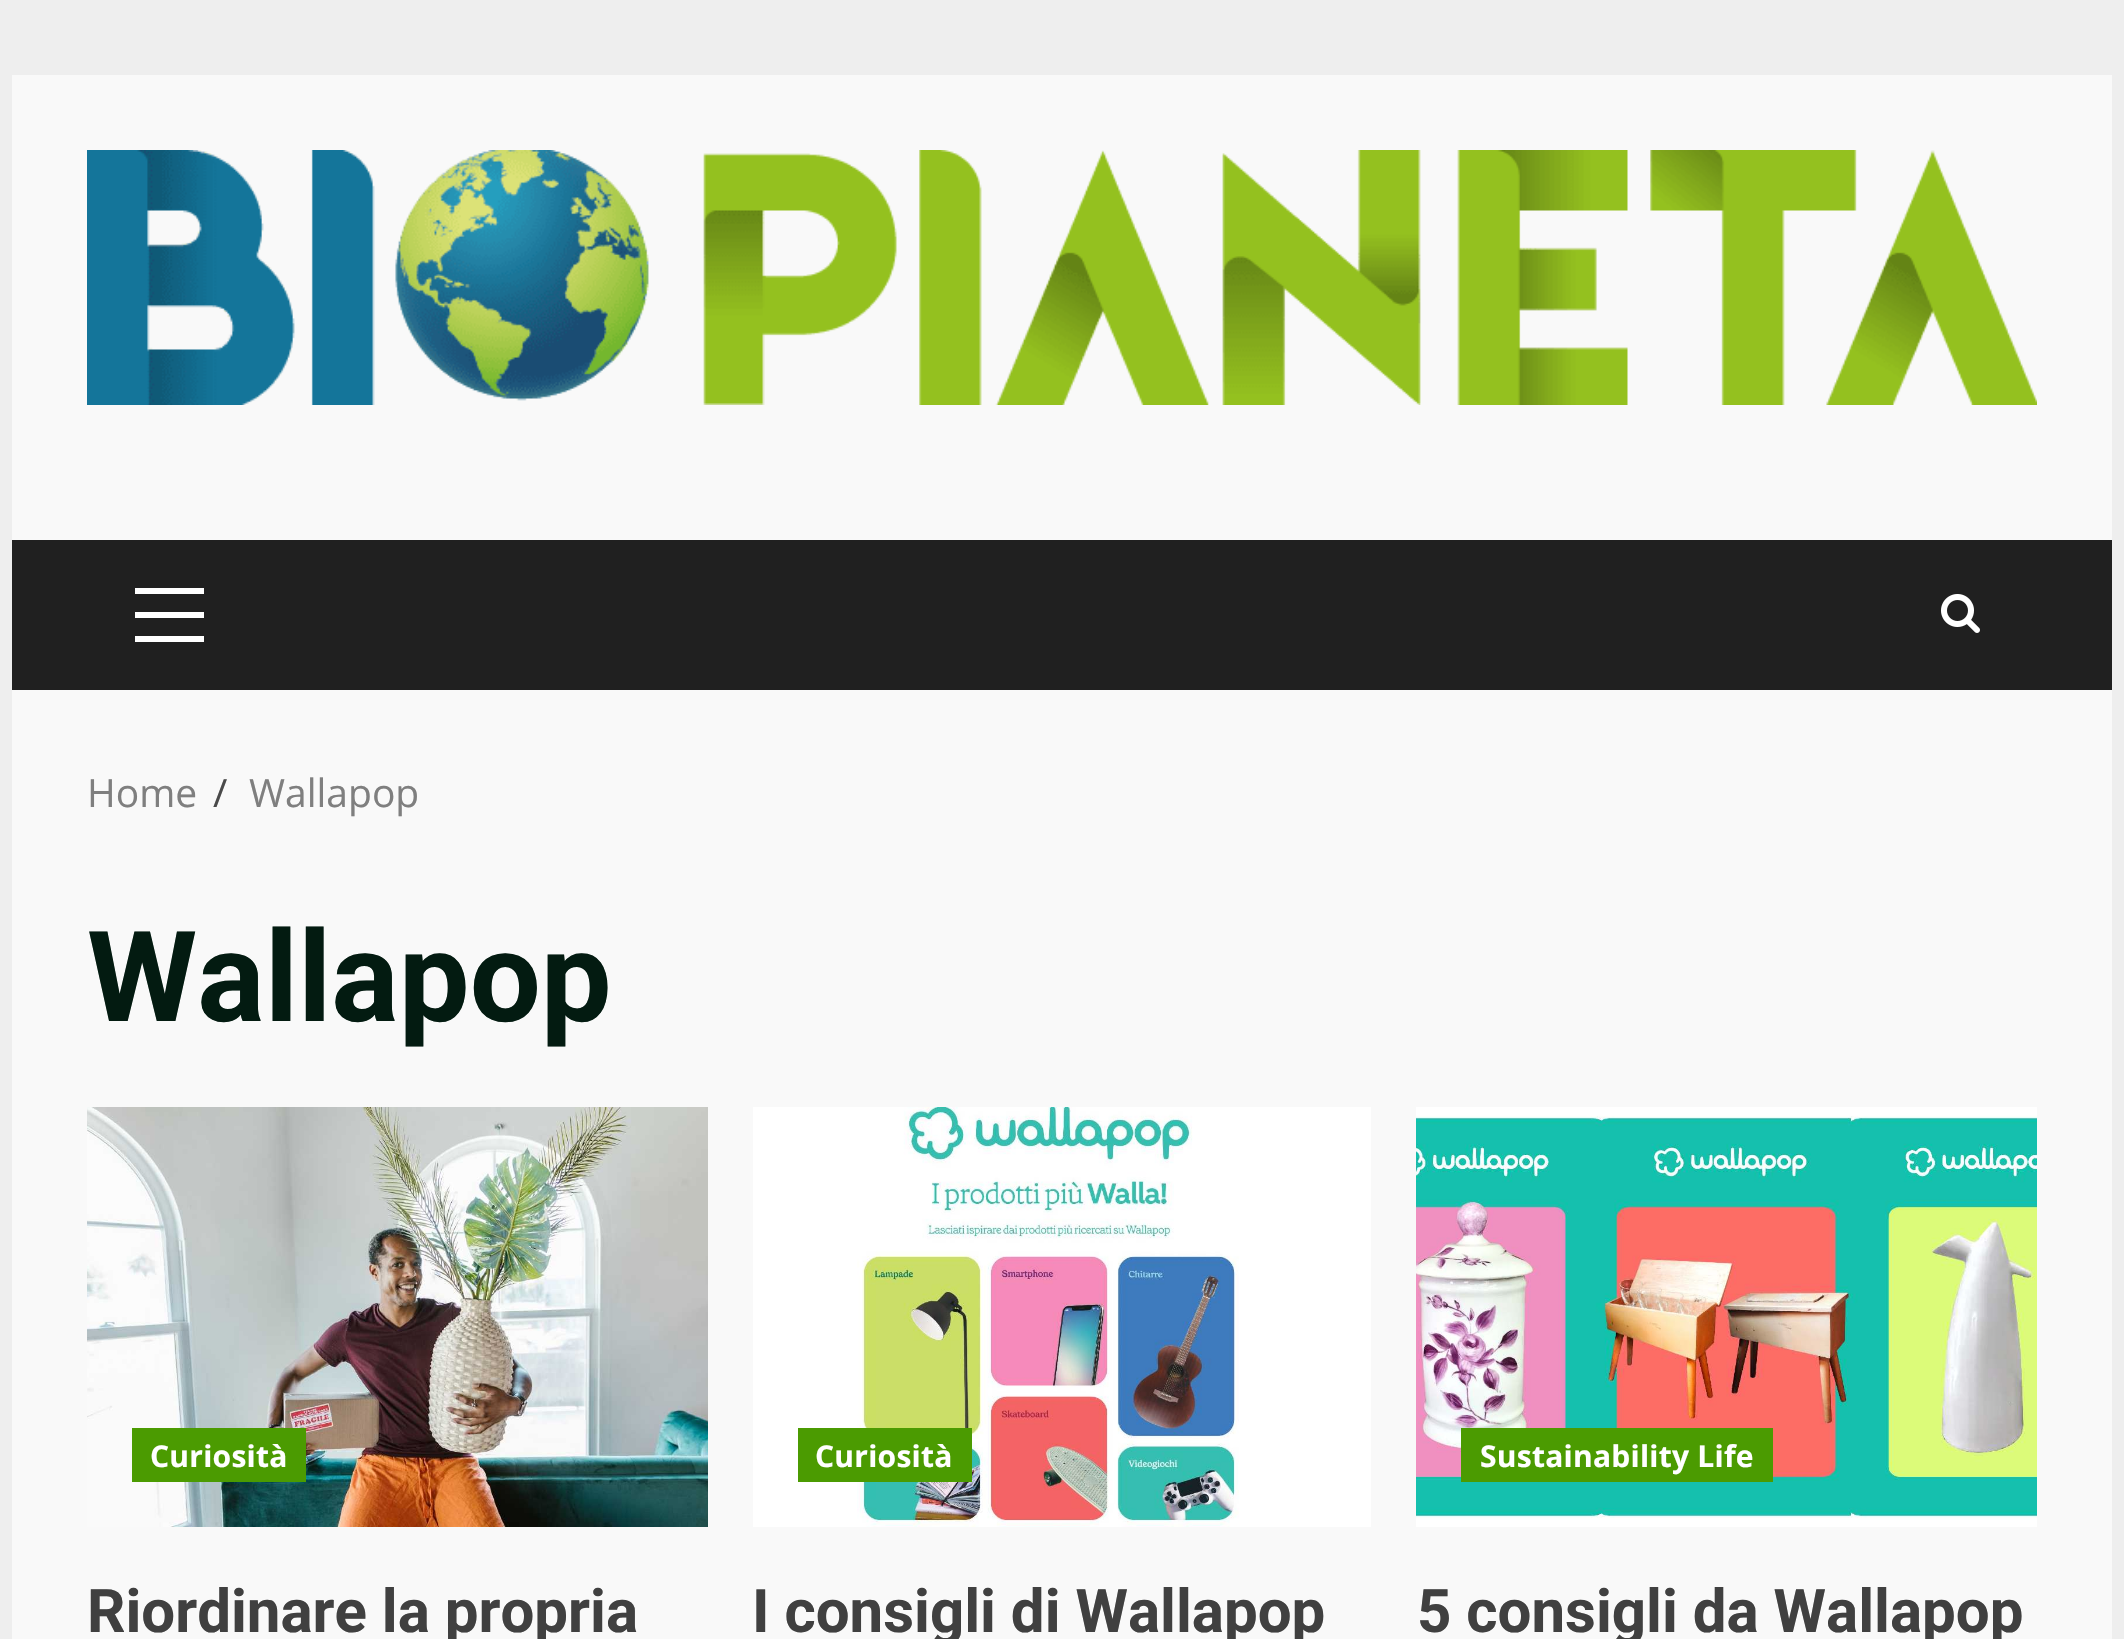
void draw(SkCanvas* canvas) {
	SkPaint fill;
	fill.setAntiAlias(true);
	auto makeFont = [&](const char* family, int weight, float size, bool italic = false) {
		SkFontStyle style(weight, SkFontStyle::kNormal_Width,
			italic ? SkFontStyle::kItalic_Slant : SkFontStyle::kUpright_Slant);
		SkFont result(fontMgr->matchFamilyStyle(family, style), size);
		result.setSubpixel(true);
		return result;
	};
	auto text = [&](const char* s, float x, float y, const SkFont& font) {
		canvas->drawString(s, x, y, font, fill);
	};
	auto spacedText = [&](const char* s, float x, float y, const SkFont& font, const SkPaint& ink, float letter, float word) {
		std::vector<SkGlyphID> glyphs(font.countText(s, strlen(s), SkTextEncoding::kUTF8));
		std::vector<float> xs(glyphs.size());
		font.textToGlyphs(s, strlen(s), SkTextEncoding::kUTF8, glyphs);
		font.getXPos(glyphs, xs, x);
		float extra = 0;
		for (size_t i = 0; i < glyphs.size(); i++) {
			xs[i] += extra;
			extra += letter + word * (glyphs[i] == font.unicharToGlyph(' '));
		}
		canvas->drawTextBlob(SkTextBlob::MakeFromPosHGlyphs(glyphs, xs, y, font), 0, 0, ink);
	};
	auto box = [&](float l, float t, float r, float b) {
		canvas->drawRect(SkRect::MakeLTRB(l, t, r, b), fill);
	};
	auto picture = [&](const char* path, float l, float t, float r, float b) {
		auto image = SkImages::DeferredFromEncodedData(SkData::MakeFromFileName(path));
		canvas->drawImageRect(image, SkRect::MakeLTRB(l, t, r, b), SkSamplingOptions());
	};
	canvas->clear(0xFFEEEEEE);
	fill.setColor(0xFFF9F9F9);
	box(12, 75, 2112, 1639);
	picture("image0.png", 87, 150, 2037, 405);
	fill.setColor(0xFF202020);
	box(12, 540, 2112, 690);
	fill.setColor(0xFFFFFFFF);
	box(135, 612, 204, 618);
	box(135, 588, 204, 594);
	box(135, 636, 204, 642);
	picture("image1.png", 1941, 594, 1980, 633);
	picture("image2.png", 87, 1107, 708, 1527);
	fill.setColor(0xFF4B9B01);
	box(132, 1428, 306, 1482);
	picture("image3.png", 753, 1107, 1371, 1527);
	box(798, 1428, 972, 1482);
	picture("image4.png", 1416, 1107, 2037, 1527);
	box(1461, 1428, 1773, 1482);
	auto font1 = makeFont("Open Sans", 400, 39);
	fill.setColor(0xFF7F7F7F);
	text("Home", 87, 807, font1);
	fill.setColor(0xFF4A4A4A);
	text("/", 213, 807, font1);
	fill.setColor(0xFF7F7F7F);
	text("Wallapop", 249, 807, font1);
	auto font2 = makeFont("Roboto", 700, 126);
	fill.setColor(0xFF031B11);
	text("Wallapop", 87, 1021, font2);
	auto font3 = makeFont("Open Sans", 700, 30);
	fill.setColor(0xFFFFFFFF);
	spacedText("Curiosità", 150, 1467, font3, fill, 0.25f, 0);
	auto font4 = makeFont("Roboto", 700, 60);
	fill.setColor(0xFF404040);
	text("Riordinare la propria", 87, 1632, font4);
	fill.setColor(0xFFFFFFFF);
	spacedText("Curiosità", 815, 1467, font3, fill, 0.25f, 0);
	fill.setColor(0xFF404040);
	text("I consigli di Wallapop", 752, 1632, font4);
	fill.setColor(0xFFFFFFFF);
	spacedText("Sustainability Life", 1480, 1467, font3, fill, 0.25f, 0);
	fill.setColor(0xFF404040);
	text("5 consigli da Wallapop", 1417, 1632, font4);
}
